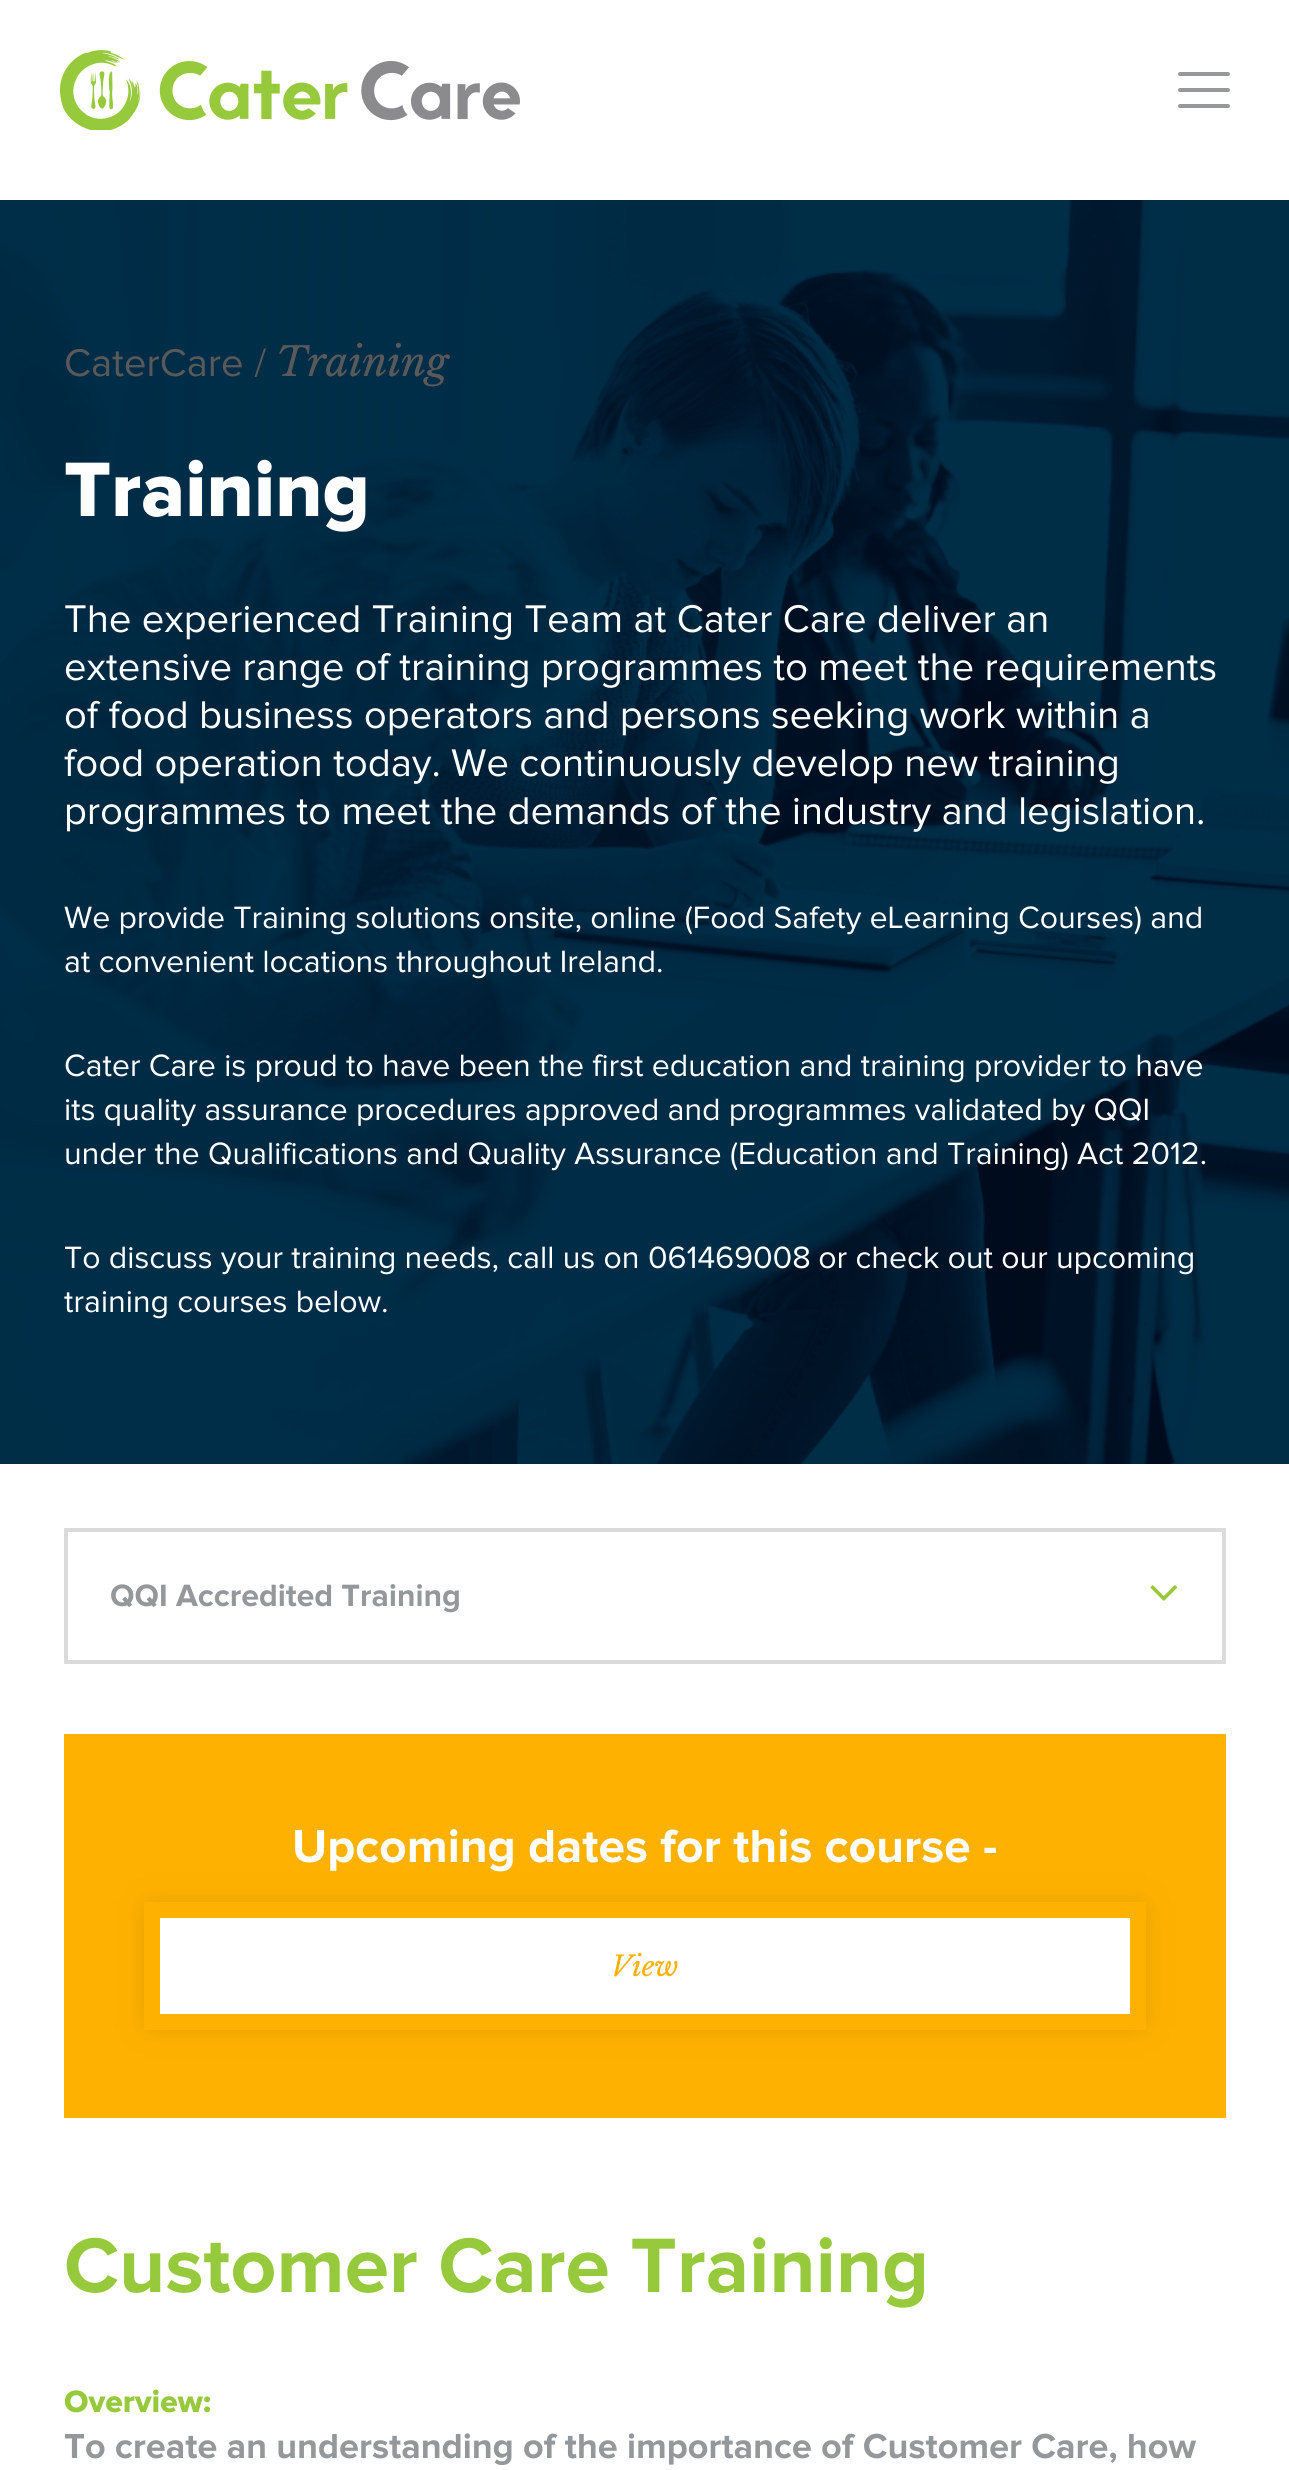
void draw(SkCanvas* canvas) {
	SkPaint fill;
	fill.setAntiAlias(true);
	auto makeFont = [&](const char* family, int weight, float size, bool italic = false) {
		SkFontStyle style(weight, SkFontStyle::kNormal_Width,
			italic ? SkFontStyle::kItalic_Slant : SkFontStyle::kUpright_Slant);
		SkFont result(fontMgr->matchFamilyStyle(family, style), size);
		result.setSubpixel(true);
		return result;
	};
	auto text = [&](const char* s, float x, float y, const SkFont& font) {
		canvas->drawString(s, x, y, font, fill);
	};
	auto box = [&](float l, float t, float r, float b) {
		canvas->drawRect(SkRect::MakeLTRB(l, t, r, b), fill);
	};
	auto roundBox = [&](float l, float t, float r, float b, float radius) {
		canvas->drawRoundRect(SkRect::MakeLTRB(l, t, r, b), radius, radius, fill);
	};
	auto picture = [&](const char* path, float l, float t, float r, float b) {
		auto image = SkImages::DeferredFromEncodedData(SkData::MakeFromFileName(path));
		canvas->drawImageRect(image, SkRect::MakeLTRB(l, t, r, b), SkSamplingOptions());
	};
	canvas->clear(0xFFFFFFFF);
	picture("image0.png", 60, 50, 520, 130);
	fill.setColor(0xFF95989A);
	roundBox(1178, 72, 1230, 76, 2);
	roundBox(1178, 88, 1230, 92, 2);
	roundBox(1178, 104, 1230, 108, 2);
	picture("image1.png", 0, 200, 1289, 1464);
	picture("image2.png", 66, 348, 242, 377);
	fill.setColor(0xFF595959);
	canvas->drawPath(SkPathBuilder().moveTo(256.5f, 377).lineTo(266, 348.5f).lineTo(264, 348.5f).lineTo(254.5f, 377).close().detach(), fill);
	picture("image3.png", 65, 459, 366, 532);
	picture("image4.png", 65, 604, 1047, 640);
	picture("image5.png", 65, 652, 1216, 688);
	picture("image6.png", 65, 700, 1148, 736);
	picture("image7.png", 64, 748, 1117, 784);
	picture("image8.png", 67, 796, 1203, 832);
	picture("image9.png", 64, 906, 1201, 935);
	picture("image10.png", 65, 950, 662, 979);
	picture("image11.png", 65, 1054, 1203, 1083);
	picture("image12.png", 66, 1098, 1148, 1127);
	picture("image13.png", 66, 1142, 1206, 1171);
	picture("image14.png", 65, 1246, 638, 1275);
	picture("image15.png", 649, 1246, 810, 1269);
	picture("image16.png", 819, 1246, 1193, 1275);
	picture("image17.png", 64, 1290, 387, 1319);
	fill.setStyle(SkPaint::kStroke_Style);
	fill.setStrokeWidth(4);
	fill.setColor(0xFFDBDBDB);
	canvas->drawRect(SkRect::MakeLTRB(66, 1530, 1224, 1662), fill);
	picture("image18.png", 111, 1584, 459, 1613);
	picture("image19.png", 1150, 1585, 1178, 1601);
	fill.setStyle(SkPaint::kFill_Style);
	fill.setColor(0xFFFFB100);
	box(64, 1734, 1226, 2118);
	picture("image20.png", 295, 1829, 996, 1872);
	fill.setColor(0xFFFFFFFF);
	box(160, 1918, 1130, 2014);
	canvas->save();
	canvas->clipPath(SkPathBuilder(SkPathFillType::kEvenOdd).moveTo(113, 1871).lineTo(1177, 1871).lineTo(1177, 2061).lineTo(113, 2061).close().moveTo(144, 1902).lineTo(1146, 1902).lineTo(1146, 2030).lineTo(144, 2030).close().detach(), true);
	fill.setColor(0x1A000000);
	fill.setMaskFilter(SkMaskFilter::MakeBlur(kNormal_SkBlurStyle, 10));
	canvas->drawRect(SkRect::MakeLTRB(144, 1902, 1146, 2030), fill);
	fill.setMaskFilter(nullptr);
	canvas->restore();
	picture("image21.png", 66, 2237, 924, 2308);
	picture("image22.png", 64, 2389, 211, 2413);
	picture("image23.png", 64, 2433, 1196, 2465);
	auto font1 = makeFont("Libre Baskerville", 400, 40, true);
	fill.setColor(0xFF595959);
	text("Training", 276, 376, font1);
	auto font2 = makeFont("Libre Baskerville", 400, 28, true);
	fill.setColor(0xFFFFB100);
	text("View", 611, 1976, font2);
}
